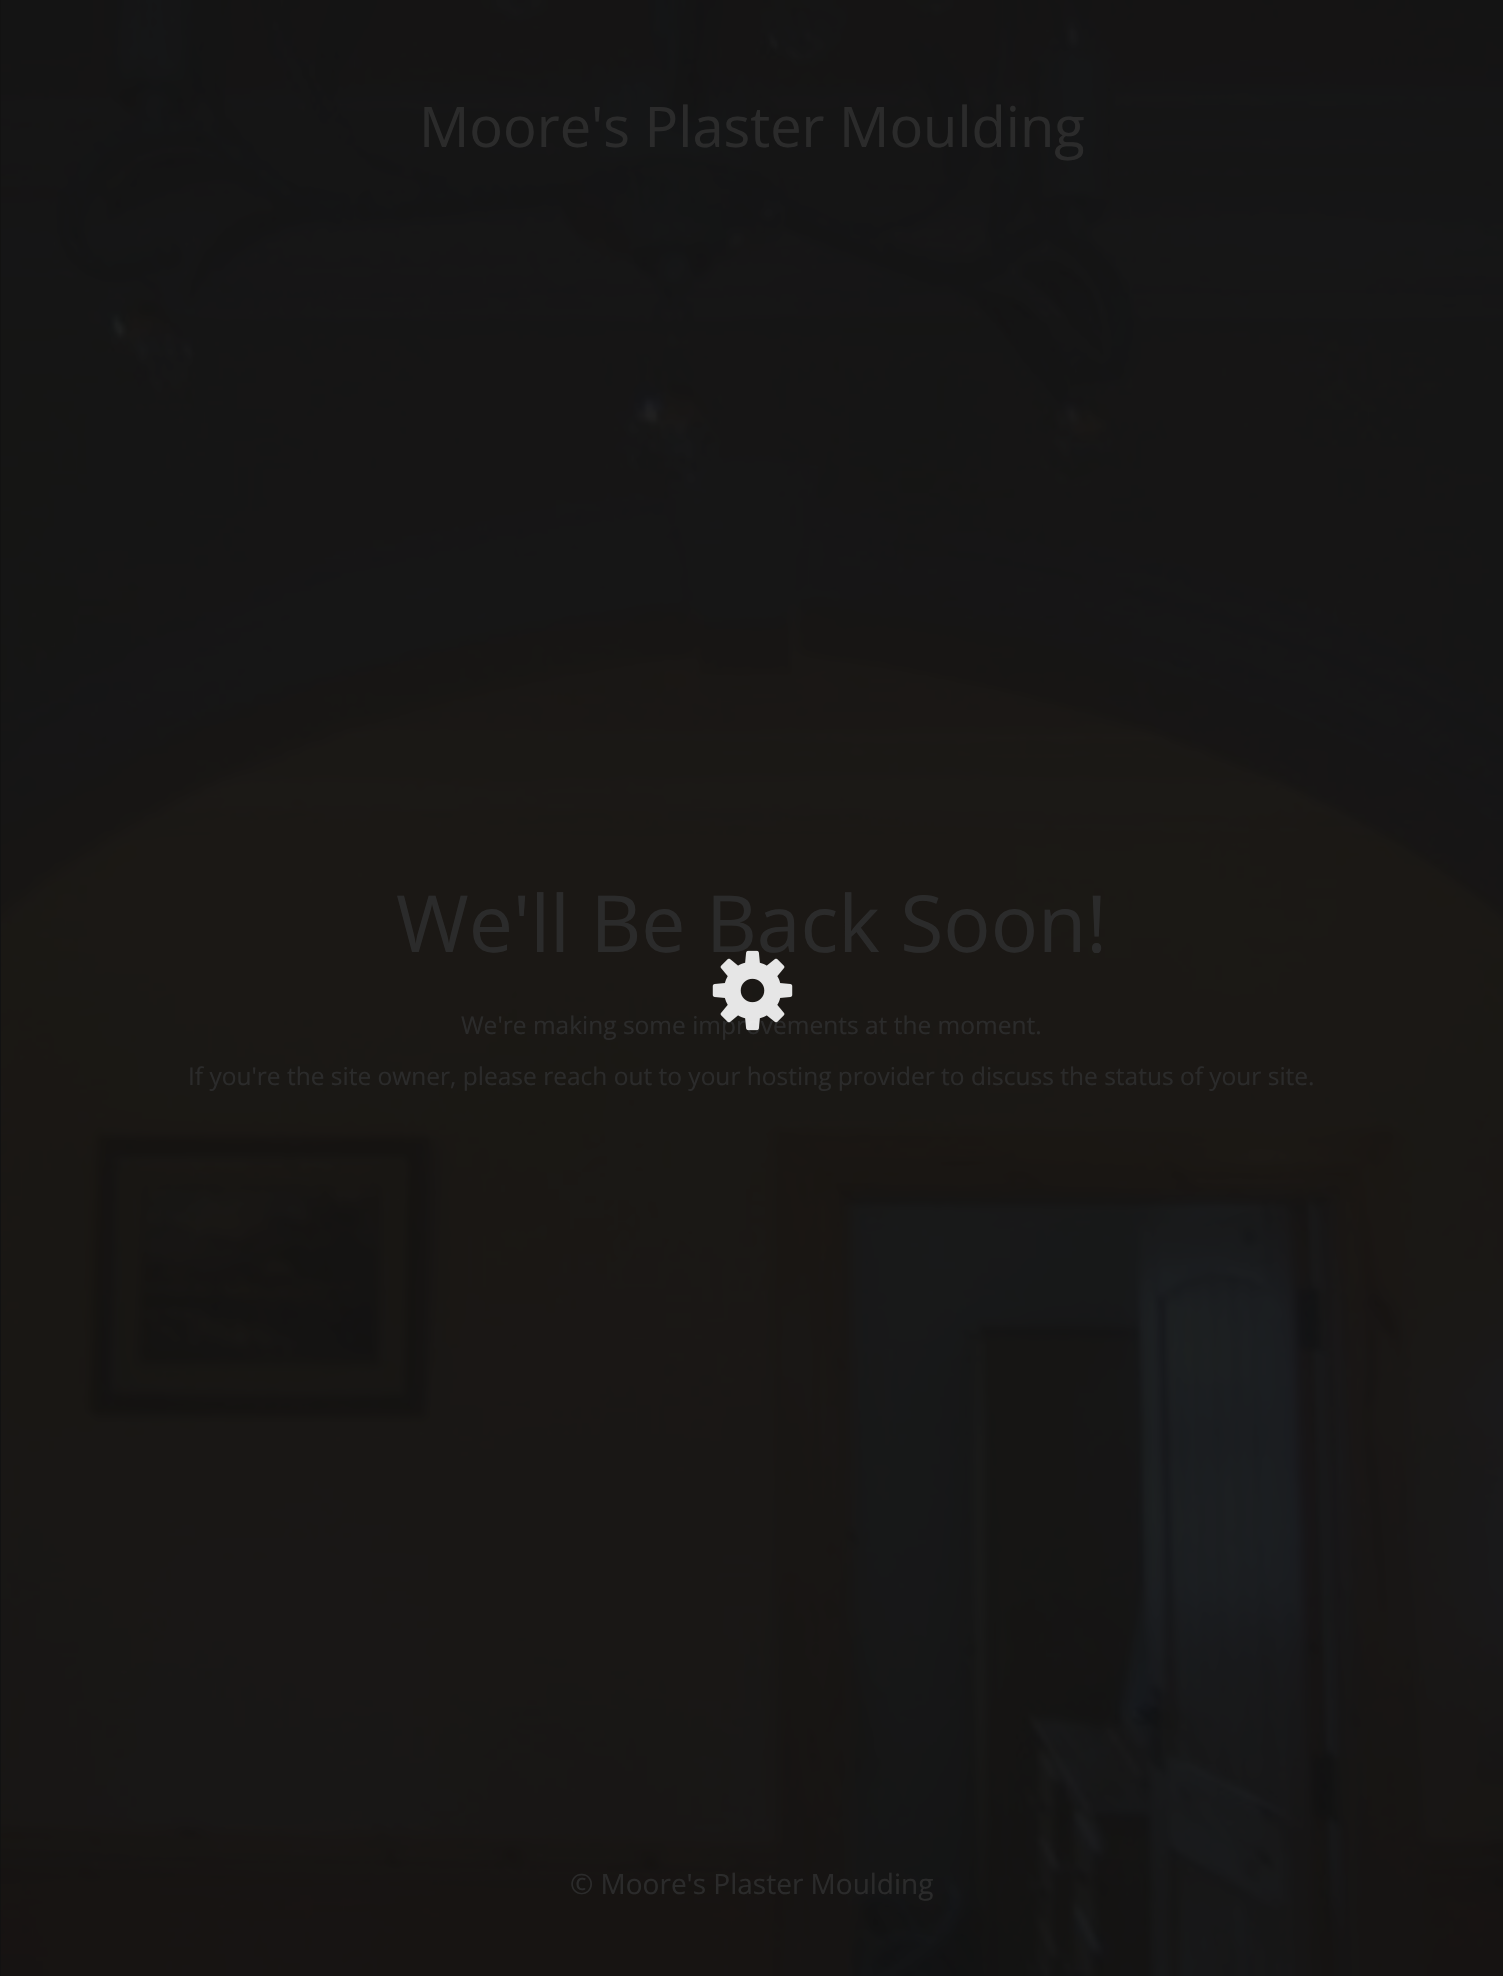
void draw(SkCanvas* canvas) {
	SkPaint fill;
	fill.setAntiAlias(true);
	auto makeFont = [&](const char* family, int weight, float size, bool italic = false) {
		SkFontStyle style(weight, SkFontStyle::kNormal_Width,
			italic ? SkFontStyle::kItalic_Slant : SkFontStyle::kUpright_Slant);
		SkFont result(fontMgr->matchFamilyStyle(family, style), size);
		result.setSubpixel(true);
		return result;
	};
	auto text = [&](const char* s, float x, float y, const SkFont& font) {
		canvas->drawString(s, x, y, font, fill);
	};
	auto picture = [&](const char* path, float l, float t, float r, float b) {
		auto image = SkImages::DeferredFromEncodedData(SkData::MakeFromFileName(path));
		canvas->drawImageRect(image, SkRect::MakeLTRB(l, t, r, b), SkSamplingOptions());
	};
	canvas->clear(0xFF111111);
	picture("image0.png", 0, 0, 1503, 1976);
	auto font1 = makeFont("Open Sans", 400, 56);
	fill.setColor(0xFF2B2B2B);
	text("Moore's Plaster Moulding", 419, 147, font1);
	auto font2 = makeFont("Open Sans", 400, 78.75f);
	text("We'll Be Back Soon!", 396, 952, font2);
	auto font3 = makeFont("Open Sans", 400, 24.5f);
	text("We're making some improvements at the moment.", 461, 1034, font3);
	text("If you're the site owner, please reach out to your hosting provider to discuss the status of your site.", 188, 1085, font3);
	picture("image1.png", 712, 950, 793, 1031);
	auto font4 = makeFont("Open Sans", 400, 28);
	text("© Moore's Plaster Moulding", 570, 1894, font4);
}
